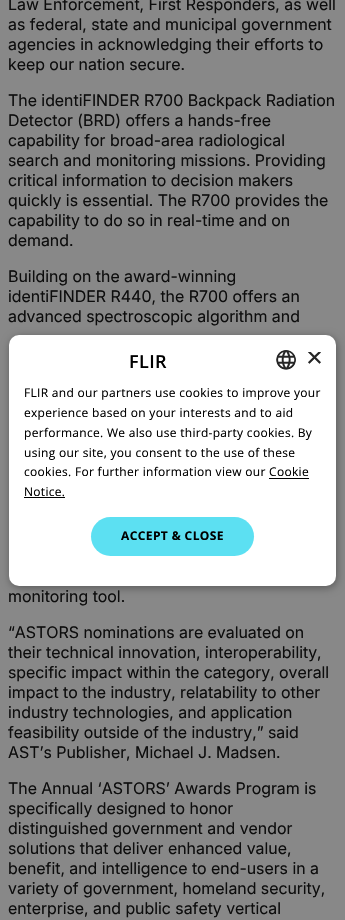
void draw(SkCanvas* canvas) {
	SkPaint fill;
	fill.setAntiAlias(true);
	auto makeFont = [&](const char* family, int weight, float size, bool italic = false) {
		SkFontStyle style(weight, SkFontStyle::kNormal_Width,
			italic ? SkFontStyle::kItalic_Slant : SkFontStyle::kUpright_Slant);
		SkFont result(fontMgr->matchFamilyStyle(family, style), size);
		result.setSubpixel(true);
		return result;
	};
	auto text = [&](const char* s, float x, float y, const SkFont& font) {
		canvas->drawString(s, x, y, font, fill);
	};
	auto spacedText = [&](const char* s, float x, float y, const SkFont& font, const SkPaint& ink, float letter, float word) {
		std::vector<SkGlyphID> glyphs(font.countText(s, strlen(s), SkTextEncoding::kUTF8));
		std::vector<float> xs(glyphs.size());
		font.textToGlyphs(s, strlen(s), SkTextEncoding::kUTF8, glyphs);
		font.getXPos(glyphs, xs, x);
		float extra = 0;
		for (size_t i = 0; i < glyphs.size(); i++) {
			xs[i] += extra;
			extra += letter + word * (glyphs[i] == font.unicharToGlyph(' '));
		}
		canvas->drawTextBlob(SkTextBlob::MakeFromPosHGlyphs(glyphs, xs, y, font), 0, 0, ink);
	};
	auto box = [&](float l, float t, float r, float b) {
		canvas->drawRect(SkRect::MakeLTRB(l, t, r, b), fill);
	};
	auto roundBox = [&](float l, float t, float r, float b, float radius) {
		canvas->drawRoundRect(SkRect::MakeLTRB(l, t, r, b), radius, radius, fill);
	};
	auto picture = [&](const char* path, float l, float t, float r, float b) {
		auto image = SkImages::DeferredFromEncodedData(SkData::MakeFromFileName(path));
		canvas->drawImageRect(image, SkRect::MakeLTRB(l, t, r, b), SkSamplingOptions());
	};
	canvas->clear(0xFF888888);
	fill.setColor(0x59000000);
	fill.setMaskFilter(SkMaskFilter::MakeBlur(kNormal_SkBlurStyle, 4));
	canvas->drawRoundRect(SkRect::MakeLTRB(10, 337, 337, 588), 10, 10, fill);
	fill.setMaskFilter(nullptr);
	fill.setColor(0xFFFFFFFF);
	roundBox(9, 335, 336, 586, 10);
	picture("image0.png", 276, 350, 296, 370);
	fill.setColor(0xFF000000);
	box(269, 478, 309, 479);
	box(24, 497, 65, 498);
	fill.setColor(0xFF5CE0F2);
	roundBox(91, 517, 254, 556, 19.5f);
	auto font1 = makeFont("Inter", 400, 16);
	fill.setColor(0xFF0D0D0D);
	text("Law Enforcement, First Responders, as well", 8, 10, font1);
	text("as federal, state and municipal government", 8, 30, font1);
	text("agencies in acknowledging their efforts to", 8, 50, font1);
	text("keep our nation secure.", 8, 70, font1);
	text("The identiFINDER R700 Backpack Radiation", 8, 106, font1);
	text("Detector (BRD) offers a hands-free", 8, 126, font1);
	text("capability for broad-area radiological", 8, 146, font1);
	text("search and monitoring missions. Providing", 8, 166, font1);
	text("critical information to decision makers", 8, 186, font1);
	text("quickly is essential. The R700 provides the", 8, 206, font1);
	text("capability to do so in real-time and on", 8, 226, font1);
	text("demand.", 8, 246, font1);
	text("Building on the award-winning", 8, 282, font1);
	text("identiFINDER R440, the R700 offers an", 8, 302, font1);
	text("advanced spectroscopic algorithm and", 8, 322, font1);
	text("monitoring tool.", 8, 602, font1);
	text("“ASTORS nominations are evaluated on", 8, 638, font1);
	text("their technical innovation, interoperability,", 8, 658, font1);
	text("specific impact within the category, overall", 8, 678, font1);
	text("impact to the industry, relatability to other", 8, 698, font1);
	text("industry technologies, and application", 8, 718, font1);
	text("feasibility outside of the industry,” said", 8, 738, font1);
	text("AST’s Publisher, Michael J. Madsen.", 8, 758, font1);
	text("The Annual ‘ASTORS’ Awards Program is", 8, 794, font1);
	text("specifically designed to honor", 8, 814, font1);
	text("distinguished government and vendor", 8, 834, font1);
	text("solutions that deliver enhanced value,", 8, 854, font1);
	text("benefit, and intelligence to end-users in a", 8, 874, font1);
	text("variety of government, homeland security,", 8, 894, font1);
	text("enterprise, and public safety vertical", 8, 914, font1);
	auto font2 = makeFont("Open Sans", 600, 18);
	fill.setColor(0xFF000000);
	spacedText("FLIR", 129, 368, font2, fill, 0.4f, 0);
	canvas->save();
	canvas->clipRect(SkRect::MakeLTRB(306, 352, 321, 367));
	auto font3 = makeFont("Liberation Sans", 400, 29);
	fill.setColor(0xFF262626);
	text("×", 306, 367, font3);
	canvas->restore();
	auto font4 = makeFont("Open Sans", 400, 12);
	fill.setColor(0xFF000000);
	spacedText("FLIR and our partners use cookies to improve your", 24, 397, font4, fill, 0.3f, 0);
	spacedText("experience based on your interests and to aid", 24, 417, font4, fill, 0.3f, 0);
	spacedText("performance. We also use third-party cookies. By", 24, 437, font4, fill, 0.3f, 0);
	spacedText("using our site, you consent to the use of these", 24, 457, font4, fill, 0.3f, 0);
	spacedText("cookies. For further information view our Cookie", 24, 476, font4, fill, 0.3f, 0);
	spacedText("Notice.", 24, 496, font4, fill, 0.3f, 0);
	auto font5 = makeFont("Open Sans", 700, 12);
	spacedText("ACCEPT & CLOSE", 121, 540, font5, fill, 0.4f, 0);
}
